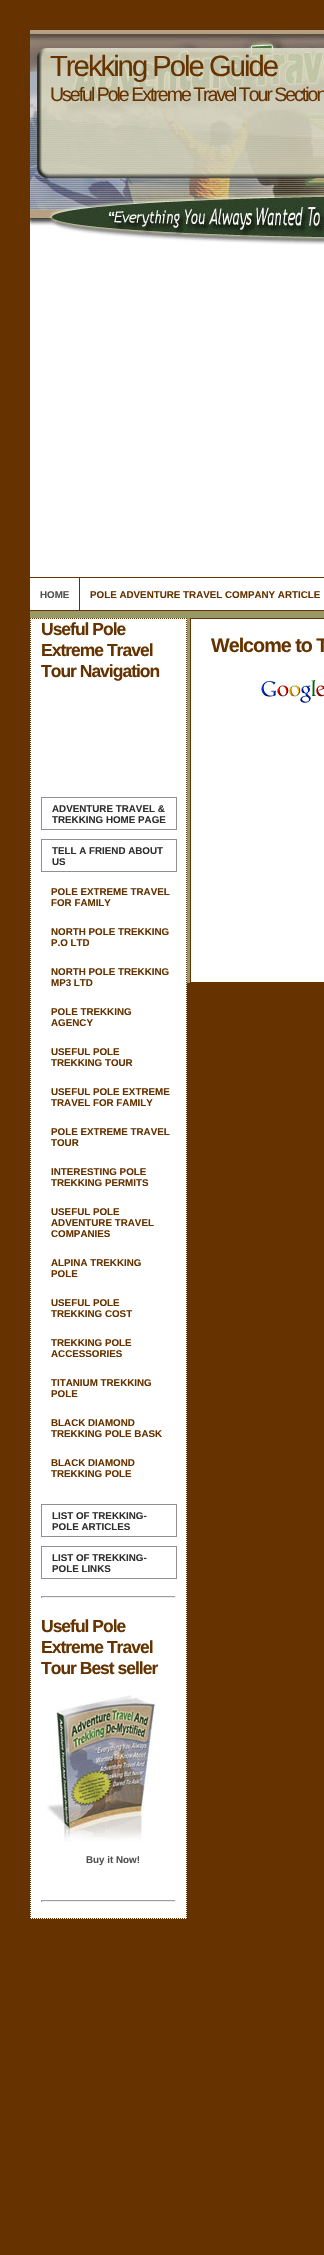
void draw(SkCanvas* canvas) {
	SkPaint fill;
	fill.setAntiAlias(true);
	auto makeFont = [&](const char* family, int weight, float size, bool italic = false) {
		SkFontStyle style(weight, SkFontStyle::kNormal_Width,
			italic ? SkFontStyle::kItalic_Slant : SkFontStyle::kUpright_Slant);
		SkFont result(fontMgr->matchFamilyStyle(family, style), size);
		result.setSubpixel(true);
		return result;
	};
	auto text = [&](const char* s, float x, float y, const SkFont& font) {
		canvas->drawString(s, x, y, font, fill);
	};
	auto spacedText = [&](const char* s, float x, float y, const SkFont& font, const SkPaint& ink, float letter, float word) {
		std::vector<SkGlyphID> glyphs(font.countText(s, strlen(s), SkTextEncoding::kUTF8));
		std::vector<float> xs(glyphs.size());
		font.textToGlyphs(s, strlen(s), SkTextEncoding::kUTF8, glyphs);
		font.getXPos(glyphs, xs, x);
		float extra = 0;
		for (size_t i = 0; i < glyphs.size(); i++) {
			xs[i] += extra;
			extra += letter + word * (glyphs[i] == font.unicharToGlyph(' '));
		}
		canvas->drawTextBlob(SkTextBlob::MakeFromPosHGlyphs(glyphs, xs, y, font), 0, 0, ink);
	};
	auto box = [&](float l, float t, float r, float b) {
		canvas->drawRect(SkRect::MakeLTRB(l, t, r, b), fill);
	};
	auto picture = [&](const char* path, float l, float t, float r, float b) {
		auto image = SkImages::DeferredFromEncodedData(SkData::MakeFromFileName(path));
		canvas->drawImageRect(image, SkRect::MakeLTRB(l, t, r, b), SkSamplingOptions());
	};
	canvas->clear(0xFF663300);
	fill.setColor(0xFF999966);
	box(30, 611, 324, 983);
	fill.setColor(0xFFFFFFFF);
	box(30, 245, 324, 577);
	picture("image0.png", 30, 30, 324, 245);
	box(30, 578, 79, 610);
	box(80, 578, 324, 610);
	box(30, 618, 187, 1919);
	fill.setStyle(SkPaint::kStroke_Style);
	fill.setStrokeWidth(1);
	fill.setColor(0xFF663300);
	fill.setPathEffect(SkDashPathEffect::Make({{1, 1}}, 0));
	canvas->drawPath(SkPathBuilder().moveTo(30, 618.5f).lineTo(187, 618.5f).detach(), fill);
	fill.setPathEffect(nullptr);
	fill.setPathEffect(SkDashPathEffect::Make({{1, 1}}, 0));
	canvas->drawPath(SkPathBuilder().moveTo(186.5f, 618).lineTo(186.5f, 1919).detach(), fill);
	fill.setPathEffect(nullptr);
	fill.setPathEffect(SkDashPathEffect::Make({{1, 1}}, 0));
	canvas->drawPath(SkPathBuilder().moveTo(30, 1918.5f).lineTo(187, 1918.5f).detach(), fill);
	fill.setPathEffect(nullptr);
	fill.setPathEffect(SkDashPathEffect::Make({{1, 1}}, 0));
	canvas->drawPath(SkPathBuilder().moveTo(30.5f, 618).lineTo(30.5f, 1919).detach(), fill);
	fill.setPathEffect(nullptr);
	fill.setColor(0xFF909090);
	canvas->drawRect(SkRect::MakeLTRB(41.5f, 797.5f, 176.5f, 829.5f), fill);
	canvas->drawRect(SkRect::MakeLTRB(41.5f, 839.5f, 176.5f, 871.5f), fill);
	canvas->drawRect(SkRect::MakeLTRB(41.5f, 1504.5f, 176.5f, 1536.5f), fill);
	canvas->drawRect(SkRect::MakeLTRB(41.5f, 1546.5f, 176.5f, 1578.5f), fill);
	fill.setStyle(SkPaint::kFill_Style);
	fill.setColor(0xFF9F9F9F);
	box(41, 1596, 176, 1597);
	fill.setColor(0xFFEEEEEE);
	box(175, 1596, 176, 1598);
	box(41, 1597, 176, 1598);
	fill.setColor(0xFF9F9F9F);
	box(41, 1596, 42, 1598);
	picture("image1.png", 47, 1695, 160, 1842);
	box(41, 1900, 176, 1901);
	fill.setColor(0xFFEEEEEE);
	box(175, 1900, 176, 1902);
	box(41, 1901, 176, 1902);
	fill.setColor(0xFF9F9F9F);
	box(41, 1900, 42, 1902);
	fill.setColor(0xFFFFFFFF);
	canvas->drawRect(SkRect::MakeLTRB(190.5f, 618.5f, 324.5f, 982.5f), fill);
	fill.setStyle(SkPaint::kStroke_Style);
	fill.setColor(0xFF663300);
	canvas->drawRect(SkRect::MakeLTRB(190.5f, 618.5f, 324.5f, 982.5f), fill);
	picture("image2.png", 261, 680, 324, 703);
	auto font1 = makeFont("Liberation Sans", 400, 29.25f);
	fill.setStyle(SkPaint::kFill_Style);
	spacedText("Trekking Pole Guide", 50, 76, font1, fill, -2, 0);
	auto font2 = makeFont("Liberation Sans", 400, 19.5f);
	spacedText("Useful Pole Extreme Travel Tour Section", 50, 101, font2, fill, -2, 0);
	auto font3 = makeFont("Liberation Sans", 700, 9.8f);
	fill.setColor(0xFF505050);
	text("HOME", 40, 598, font3);
	fill.setColor(0xFF663300);
	text("POLE ADVENTURE TRAVEL COMPANY ARTICLE", 90, 598, font3);
	auto font4 = makeFont("Liberation Sans", 700, 17.5f);
	spacedText("Useful Pole", 41, 635, font4, fill, -1, 0);
	spacedText("Extreme Travel", 41, 656, font4, fill, -1, 0);
	spacedText("Tour Navigation", 41, 677, font4, fill, -1, 0);
	fill.setColor(0xFF303030);
	text("ADVENTURE TRAVEL &", 52, 812, font3);
	text("TREKKING HOME PAGE", 52, 823, font3);
	text("TELL A FRIEND ABOUT", 52, 854, font3);
	text("US", 52, 865, font3);
	fill.setColor(0xFF663300);
	text("POLE EXTREME TRAVEL", 51, 895, font3);
	text("FOR FAMILY", 51, 906, font3);
	text("NORTH POLE TREKKING", 51, 935, font3);
	text("P.O LTD", 51, 946, font3);
	text("NORTH POLE TREKKING", 51, 975, font3);
	text("MP3 LTD", 51, 986, font3);
	text("POLE TREKKING", 51, 1015, font3);
	text("AGENCY", 51, 1026, font3);
	text("USEFUL POLE", 51, 1055, font3);
	text("TREKKING TOUR", 51, 1066, font3);
	text("USEFUL POLE EXTREME", 51, 1095, font3);
	text("TRAVEL FOR FAMILY", 51, 1106, font3);
	text("POLE EXTREME TRAVEL", 51, 1135, font3);
	text("TOUR", 51, 1146, font3);
	text("INTERESTING POLE", 51, 1175, font3);
	text("TREKKING PERMITS", 51, 1186, font3);
	text("USEFUL POLE", 51, 1215, font3);
	text("ADVENTURE TRAVEL", 51, 1226, font3);
	text("COMPANIES", 51, 1237, font3);
	text("ALPINA TREKKING", 51, 1266, font3);
	text("POLE", 51, 1277, font3);
	text("USEFUL POLE", 51, 1306, font3);
	text("TREKKING COST", 51, 1317, font3);
	text("TREKKING POLE", 51, 1346, font3);
	text("ACCESSORIES", 51, 1357, font3);
	text("TITANIUM TREKKING", 51, 1386, font3);
	text("POLE", 51, 1397, font3);
	text("BLACK DIAMOND", 51, 1426, font3);
	text("TREKKING POLE BASK", 51, 1437, font3);
	text("BLACK DIAMOND", 51, 1466, font3);
	text("TREKKING POLE", 51, 1477, font3);
	fill.setColor(0xFF303030);
	text("LIST OF TREKKING-", 52, 1519, font3);
	text("POLE ARTICLES", 52, 1530, font3);
	text("LIST OF TREKKING-", 52, 1561, font3);
	text("POLE LINKS", 52, 1572, font3);
	fill.setColor(0xFF663300);
	spacedText("Useful Pole", 41, 1632, font4, fill, -1, 0);
	spacedText("Extreme Travel", 41, 1653, font4, fill, -1, 0);
	spacedText("Tour Best seller", 41, 1674, font4, fill, -1, 0);
	fill.setColor(0xFF505050);
	text("Buy it Now!", 86, 1863, font3);
	auto font5 = makeFont("Liberation Sans", 700, 19.75f);
	fill.setColor(0xFF663300);
	spacedText("Welcome to T", 211, 652, font5, fill, -1, 0);
}
